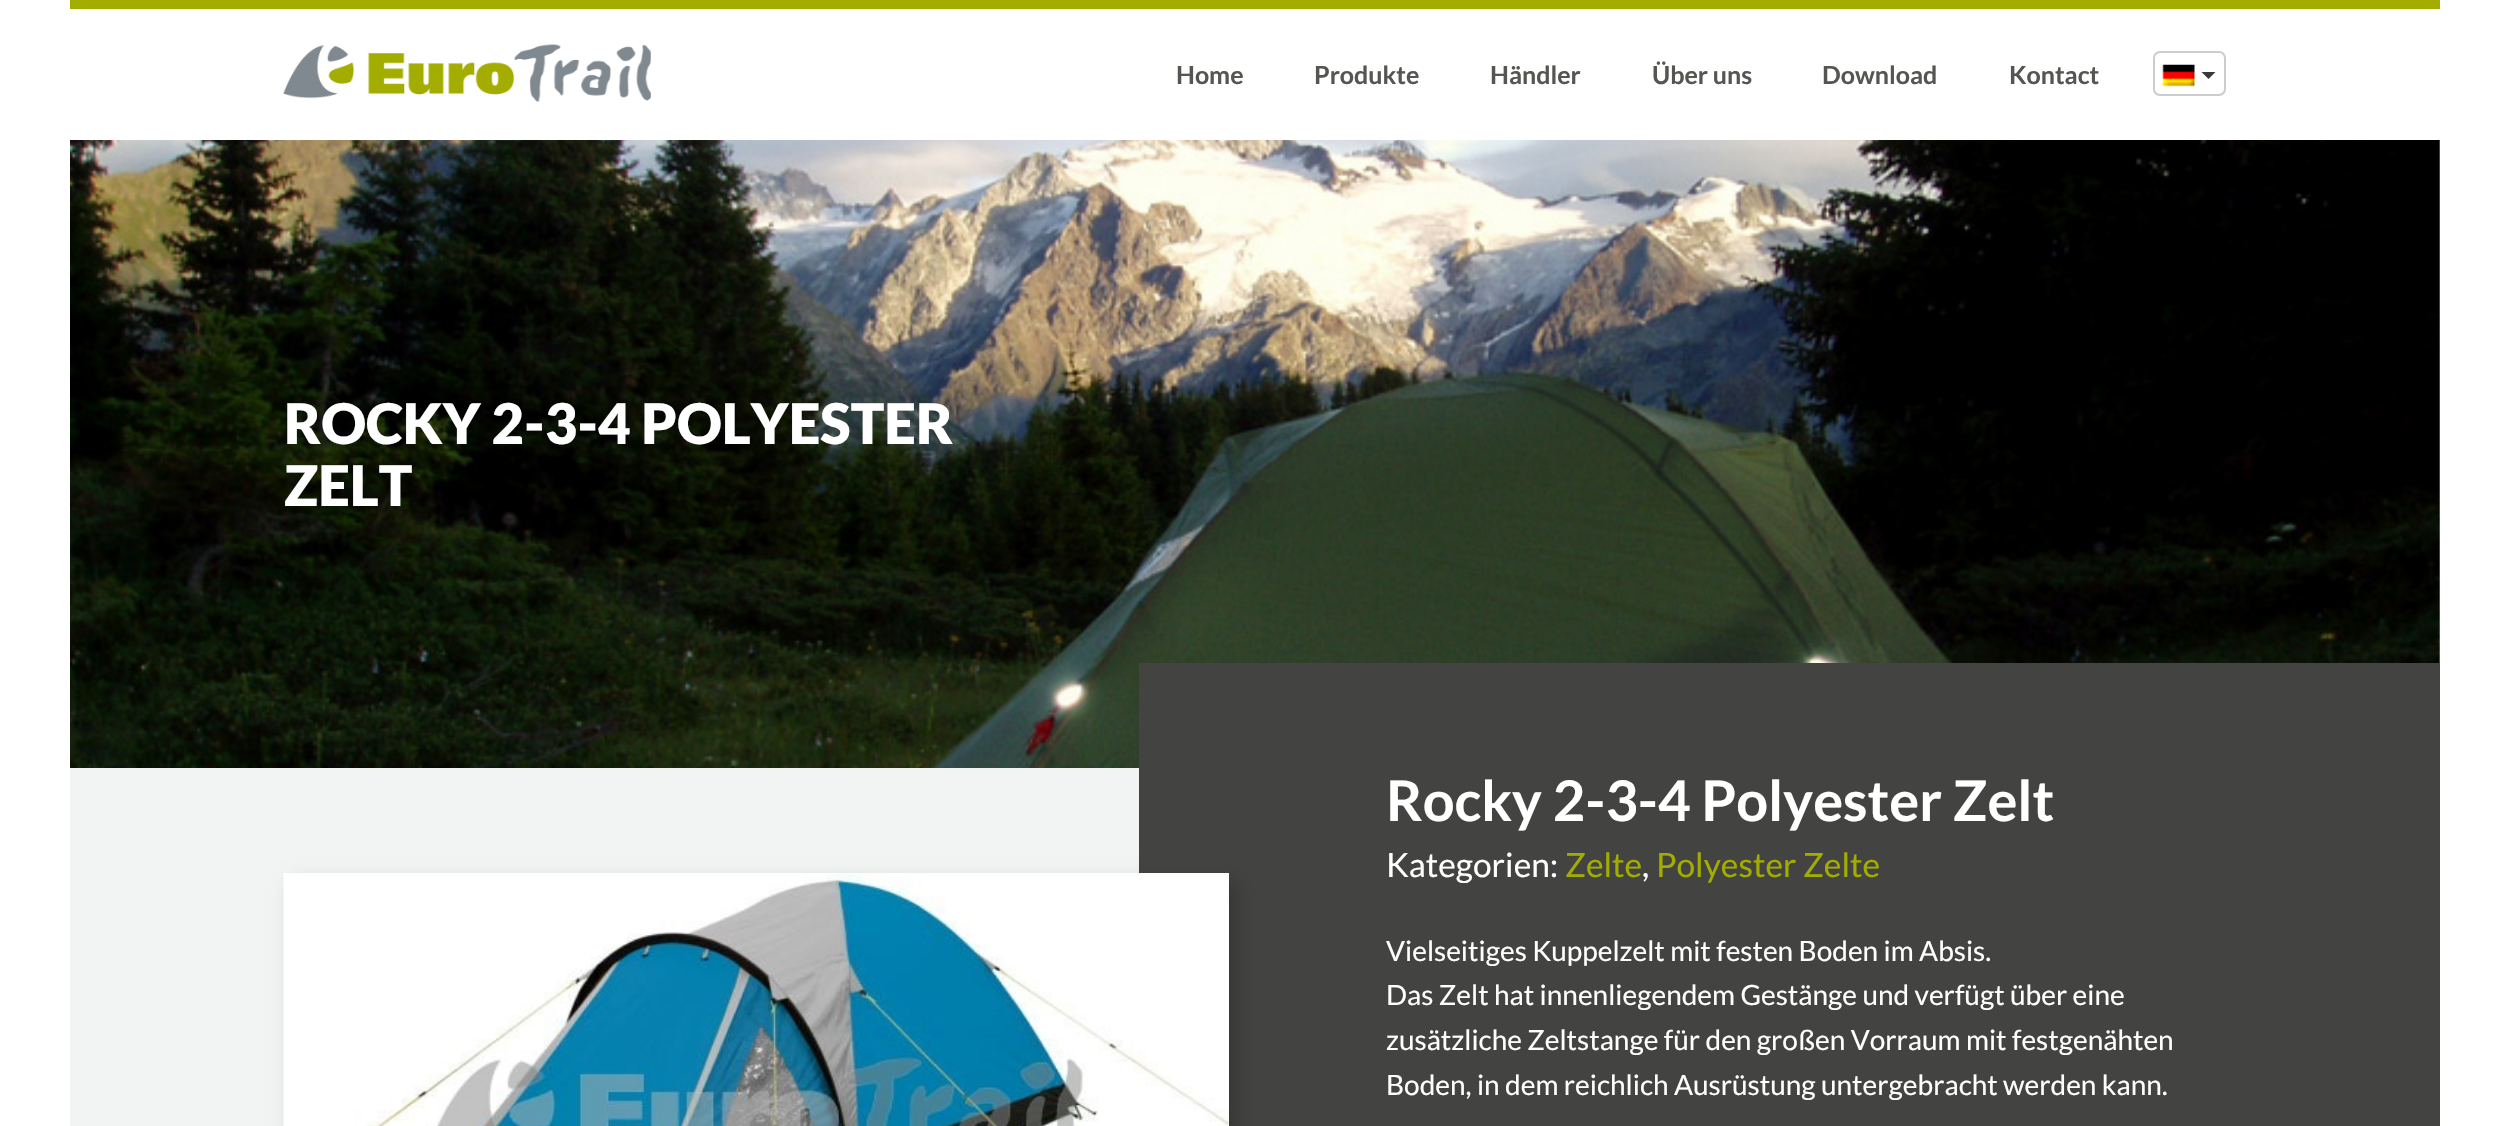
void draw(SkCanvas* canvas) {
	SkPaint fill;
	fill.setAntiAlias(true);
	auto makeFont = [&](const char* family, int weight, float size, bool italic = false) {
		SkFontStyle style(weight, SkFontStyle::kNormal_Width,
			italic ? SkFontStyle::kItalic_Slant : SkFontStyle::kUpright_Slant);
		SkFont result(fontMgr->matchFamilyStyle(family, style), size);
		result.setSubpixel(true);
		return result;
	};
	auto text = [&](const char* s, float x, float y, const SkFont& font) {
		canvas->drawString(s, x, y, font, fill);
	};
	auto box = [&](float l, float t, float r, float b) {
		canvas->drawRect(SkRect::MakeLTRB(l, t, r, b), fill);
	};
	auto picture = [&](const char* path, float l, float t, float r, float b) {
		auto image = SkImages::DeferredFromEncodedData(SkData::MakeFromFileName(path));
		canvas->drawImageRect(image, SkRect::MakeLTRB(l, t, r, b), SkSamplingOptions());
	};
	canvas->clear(0xFFFFFFFF);
	fill.setColor(0xFFA2AD00);
	box(70, 0, 2440, 9);
	picture("image0.png", 283, 44, 651, 102);
	fill.setStyle(SkPaint::kStroke_Style);
	fill.setStrokeWidth(2);
	fill.setColor(0xFFCCCCCC);
	canvas->drawRoundRect(SkRect::MakeLTRB(2154, 52, 2225, 95), 6, 6, fill);
	picture("image1.png", 2162, 64, 2195, 87);
	fill.setStyle(SkPaint::kFill_Style);
	fill.setColor(0xFF373A3C);
	canvas->drawPath(SkPathBuilder().moveTo(2201.5f, 72).lineTo(2215.5f, 72).lineTo(2208.5f, 79).close().detach(), fill);
	fill.setColor(0xFF818990);
	box(2439, 140, 2440, 663);
	picture("image2.png", 70, 140, 2440, 768);
	fill.setColor(0xFFF2F3F3);
	box(70, 768, 1139, 1126);
	fill.setColor(0xFF434441);
	box(1139, 663, 2440, 1126);
	fill.setColor(0x33000000);
	fill.setMaskFilter(SkMaskFilter::MakeBlur(kNormal_SkBlurStyle, 9));
	canvas->drawRect(SkRect::MakeLTRB(292, 882, 1237, 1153), fill);
	fill.setMaskFilter(nullptr);
	fill.setColor(0xFFFFFFFF);
	box(284, 873, 1229, 1126);
	picture("image3.png", 283, 873, 1229, 1126);
	auto font1 = makeFont("Lato", 700, 25);
	fill.setColor(0xFF555652);
	text("Home", 1176, 84, font1);
	text("Produkte", 1314, 84, font1);
	text("Händler", 1490, 84, font1);
	text("Über uns", 1652, 84, font1);
	text("Download", 1822, 84, font1);
	text("Kontact", 2009, 84, font1);
	auto font2 = makeFont("Lato", 900, 56);
	fill.setColor(0xFFFFFFFF);
	text("ROCKY 2-3-4 POLYESTER", 284, 444, font2);
	text("ZELT", 284, 506, font2);
	auto font3 = makeFont("Lato", 700, 56);
	text("Rocky 2-3-4 Polyester Zelt", 1386, 821, font3);
	auto font4 = makeFont("Lato", 400, 33.5f);
	text("Kategorien:", 1386, 877, font4);
	fill.setColor(0xFFA2AD00);
	text("Zelte", 1565, 877, font4);
	fill.setColor(0xFFFFFFFF);
	text(",", 1642, 877, font4);
	fill.setColor(0xFFA2AD00);
	text("Polyester Zelte", 1656, 877, font4);
	auto font5 = makeFont("Lato", 400, 28);
	fill.setColor(0xFFFFFFFF);
	text("Vielseitiges Kuppelzelt mit festen Boden im Absis.", 1386, 961, font5);
	text("Das Zelt hat innenliegendem Gestänge und verfügt über eine", 1386, 1005, font5);
	text("zusätzliche Zeltstange für den großen Vorraum mit festgenähten", 1386, 1050, font5);
	text("Boden, in dem reichlich Ausrüstung untergebracht werden kann.", 1386, 1095, font5);
}
